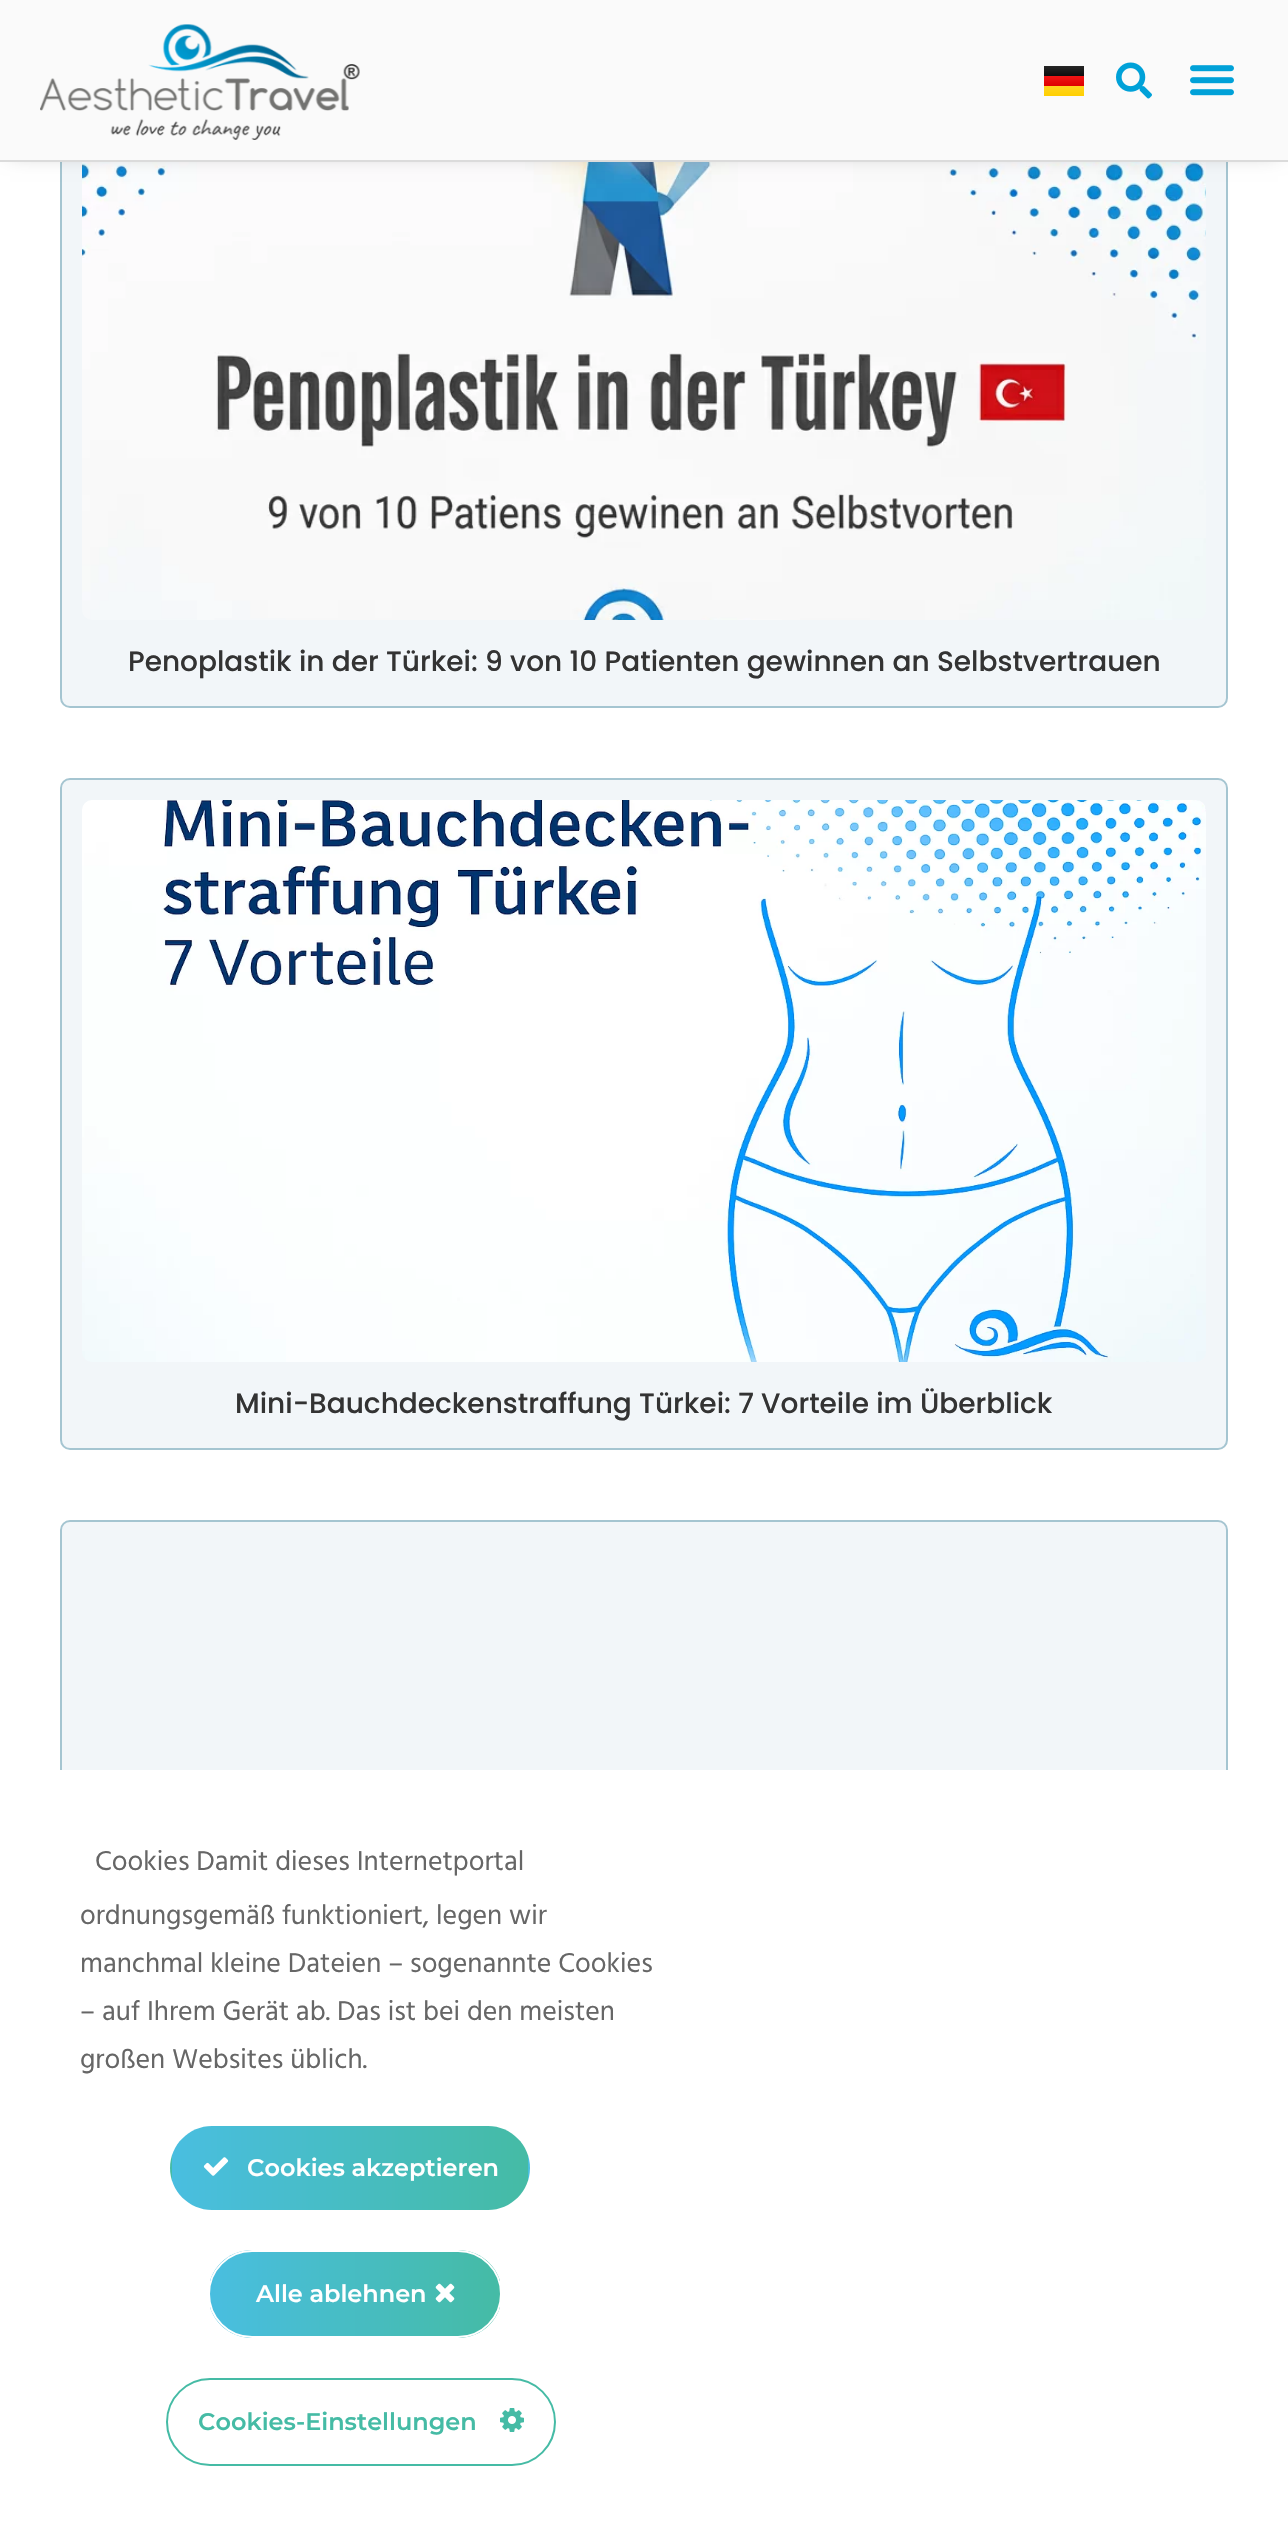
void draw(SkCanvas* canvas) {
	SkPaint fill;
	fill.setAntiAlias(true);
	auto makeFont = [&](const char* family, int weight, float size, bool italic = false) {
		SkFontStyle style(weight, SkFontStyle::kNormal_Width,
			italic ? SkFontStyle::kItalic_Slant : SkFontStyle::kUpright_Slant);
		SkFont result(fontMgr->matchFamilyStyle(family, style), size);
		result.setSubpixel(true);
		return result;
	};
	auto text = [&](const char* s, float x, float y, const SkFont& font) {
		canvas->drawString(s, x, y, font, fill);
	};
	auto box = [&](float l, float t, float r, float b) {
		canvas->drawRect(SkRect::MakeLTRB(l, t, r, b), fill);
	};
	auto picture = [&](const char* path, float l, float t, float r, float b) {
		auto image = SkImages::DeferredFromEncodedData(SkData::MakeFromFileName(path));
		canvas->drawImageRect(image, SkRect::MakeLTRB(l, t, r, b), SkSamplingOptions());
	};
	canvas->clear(0xFFFFFFFF);
	fill.setColor(0xFFF2F6F9);
	canvas->drawRoundRect(SkRect::MakeLTRB(61, 37, 1227, 707), 9, 9, fill);
	fill.setStyle(SkPaint::kStroke_Style);
	fill.setStrokeWidth(2);
	fill.setColor(0xFFA5C5D1);
	canvas->drawRoundRect(SkRect::MakeLTRB(61, 37, 1227, 707), 9, 9, fill);
	picture("image3.png", 82, 162, 1206, 620);
	fill.setStyle(SkPaint::kFill_Style);
	fill.setColor(0x4D000000);
	fill.setMaskFilter(SkMaskFilter::MakeBlur(kNormal_SkBlurStyle, 10));
	canvas->drawRect(SkRect::MakeLTRB(10, 10, 1278, 152), fill);
	fill.setMaskFilter(nullptr);
	fill.setColor(0xFFFAFAFA);
	box(0, 0, 1288, 160);
	fill.setColor(0xFFDBDBDB);
	box(0, 160, 1288, 162);
	picture("image0.png", 40, 24, 360, 140);
	{
		const SkColor colors[] = {0xFF262626, 0xFF0D0D0D};
		const float stops[] = {0, 1};
		const SkPoint ends[] = {{1065, 66}, {1065, 76}};
		fill.setShader(SkGradientShader::MakeLinear(ends, colors, stops, 2, SkTileMode::kClamp));
		fill.setAlpha(255);
	}
	box(1044, 66, 1084, 76);
	{
		const SkColor colors[] = {0xFFF01515, 0xFFDE0000};
		const float stops[] = {0, 1};
		const SkPoint ends[] = {{1065, 76}, {1065, 86}};
		fill.setShader(SkGradientShader::MakeLinear(ends, colors, stops, 2, SkTileMode::kClamp));
		fill.setAlpha(255);
	}
	box(1044, 76, 1084, 86);
	{
		const SkColor colors[] = {0xFFFFD521, 0xFFFFCF00};
		const float stops[] = {0, 1};
		const SkPoint ends[] = {{1065, 86}, {1065, 96}};
		fill.setShader(SkGradientShader::MakeLinear(ends, colors, stops, 2, SkTileMode::kClamp));
		fill.setAlpha(255);
	}
	box(1044, 86, 1084, 96);
	picture("image1.png", 1116, 62, 1152, 99);
	picture("image2.png", 1190, 65, 1234, 96);
	fill.setShader(nullptr);
	fill.setColor(0xFFF2F6F9);
	canvas->drawRoundRect(SkRect::MakeLTRB(61, 779, 1227, 1449), 9, 9, fill);
	fill.setStyle(SkPaint::kStroke_Style);
	fill.setColor(0xFFA5C5D1);
	canvas->drawRoundRect(SkRect::MakeLTRB(61, 779, 1227, 1449), 9, 9, fill);
	picture("image4.png", 82, 800, 1206, 1362);
	fill.setStyle(SkPaint::kFill_Style);
	fill.setColor(0xFFF2F6F9);
	canvas->drawRoundRect(SkRect::MakeLTRB(61, 1521, 1227, 2191), 9, 9, fill);
	fill.setStyle(SkPaint::kStroke_Style);
	fill.setColor(0xFFA5C5D1);
	canvas->drawRoundRect(SkRect::MakeLTRB(61, 1521, 1227, 2191), 9, 9, fill);
	fill.setStyle(SkPaint::kFill_Style);
	fill.setColor(0xFFFFFFFF);
	box(60, 1770, 1228, 2192);
	canvas->save();
	canvas->clipPath(SkPathBuilder().moveTo(212, 2126).lineTo(488, 2126).cubicTo(511, 2126, 530, 2145, 530, 2168).cubicTo(530, 2191, 511, 2210, 488, 2210).lineTo(212, 2210).cubicTo(189, 2210, 170, 2191, 170, 2168).cubicTo(170, 2145, 189, 2126, 212, 2126).close().detach(), true);
	{
		const SkColor colors[] = {0xFF49BEE0, 0xFF45BBA5};
		const float stops[] = {0, 1};
		const SkPoint ends[] = {{-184, 2168}, {172, 2168}};
		fill.setShader(SkGradientShader::MakeLinear(ends, colors, stops, 2, SkTileMode::kClamp));
		fill.setAlpha(255);
	}
	box(170, 2155, 172, 2181);
	{
		const SkColor colors[] = {0xFF49BEE0, 0xFF45BBA5};
		const float stops[] = {0, 1};
		const SkPoint ends[] = {{172, 2168}, {528, 2168}};
		fill.setShader(SkGradientShader::MakeLinear(ends, colors, stops, 2, SkTileMode::kClamp));
		fill.setAlpha(255);
	}
	box(172, 2126, 528, 2210);
	{
		const SkColor colors[] = {0xFF49BEE0, 0xFF45BBA5};
		const float stops[] = {0, 1};
		const SkPoint ends[] = {{528, 2168}, {884, 2168}};
		fill.setShader(SkGradientShader::MakeLinear(ends, colors, stops, 2, SkTileMode::kClamp));
		fill.setAlpha(255);
	}
	box(528, 2155, 530, 2181);
	canvas->restore();
	picture("image5.png", 203, 2157, 229, 2176);
	canvas->save();
	canvas->clipPath(SkPathBuilder().moveTo(252, 2250).lineTo(458, 2250).cubicTo(482.5f, 2250, 502, 2269.5f, 502, 2294).cubicTo(502, 2318.5f, 482.5f, 2338, 458, 2338).lineTo(252, 2338).cubicTo(227.5f, 2338, 208, 2318.5f, 208, 2294).cubicTo(208, 2269.5f, 227.5f, 2250, 252, 2250).close().detach(), true);
	{
		const SkColor colors[] = {0xFF49BEE0, 0xFF45BBA5};
		const float stops[] = {0, 1};
		const SkPoint ends[] = {{210, 2294}, {500, 2294}};
		fill.setShader(SkGradientShader::MakeLinear(ends, colors, stops, 2, SkTileMode::kClamp));
		fill.setAlpha(255);
	}
	box(210, 2250, 500, 2338);
	canvas->restore();
	fill.setStyle(SkPaint::kStroke_Style);
	fill.setShader(nullptr);
	fill.setColor(0xFFFFFFFF);
	canvas->drawRoundRect(SkRect::MakeLTRB(209, 2251, 501, 2337), 43, 43, fill);
	picture("image6.png", 435, 2283, 455, 2303);
	fill.setColor(0xFF45BBA5);
	canvas->drawRoundRect(SkRect::MakeLTRB(167, 2379, 555, 2465), 43, 43, fill);
	picture("image7.png", 500, 2408, 524, 2432);
	auto font1 = makeFont("Poppins", 500, 28);
	fill.setStyle(SkPaint::kFill_Style);
	fill.setColor(0xFF333333);
	text("Penoplastik in der Türkei: 9 von 10 Patienten gewinnen an Selbstvertrauen", 128, 671, font1);
	text("Mini-Bauchdeckenstraffung Türkei: 7 Vorteile im Überblick", 235, 1413, font1);
	auto font2 = makeFont("Hind", 400, 28);
	fill.setColor(0xFF666666);
	text("Cookies Damit dieses Internetportal", 95, 1870, font2);
	text("ordnungsgemäß funktioniert, legen wir", 80, 1924, font2);
	text("manchmal kleine Dateien – sogenannte Cookies", 80, 1972, font2);
	text("– auf Ihrem Gerät ab. Das ist bei den meisten", 80, 2020, font2);
	text("großen Websites üblich.", 80, 2068, font2);
	auto font3 = makeFont("Montserrat", 600, 24);
	fill.setColor(0xFFFFFFFF);
	text("Cookies akzeptieren", 247, 2176, font3);
	text("Alle ablehnen", 256, 2302, font3);
	fill.setColor(0xFF45BBA5);
	text("Cookies-Einstellungen", 198, 2430, font3);
}
